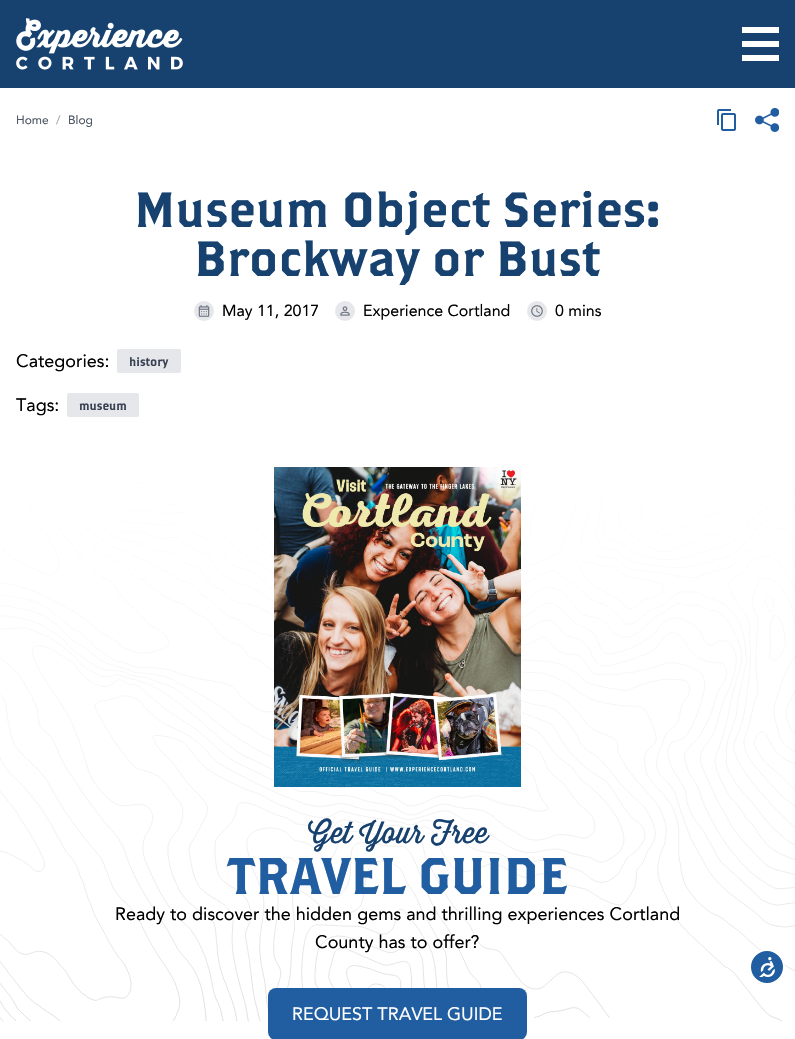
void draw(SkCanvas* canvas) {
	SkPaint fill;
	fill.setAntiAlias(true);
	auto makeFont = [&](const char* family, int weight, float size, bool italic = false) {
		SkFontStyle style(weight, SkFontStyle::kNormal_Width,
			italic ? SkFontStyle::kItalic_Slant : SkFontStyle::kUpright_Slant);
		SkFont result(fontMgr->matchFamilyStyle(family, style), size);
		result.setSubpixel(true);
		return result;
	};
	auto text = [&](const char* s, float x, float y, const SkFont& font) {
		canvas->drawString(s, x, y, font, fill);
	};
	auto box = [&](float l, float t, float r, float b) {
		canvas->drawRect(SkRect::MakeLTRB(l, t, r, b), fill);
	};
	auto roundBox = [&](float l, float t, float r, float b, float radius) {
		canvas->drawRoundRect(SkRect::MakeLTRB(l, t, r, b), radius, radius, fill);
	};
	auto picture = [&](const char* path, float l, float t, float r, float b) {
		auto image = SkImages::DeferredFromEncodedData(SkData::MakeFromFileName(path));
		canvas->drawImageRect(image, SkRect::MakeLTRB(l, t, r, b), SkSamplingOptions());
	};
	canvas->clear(0xFFFFFFFF);
	fill.setColor(0xFF174270);
	box(0, 0, 795, 88);
	picture("image0.png", 16, 18, 183, 70);
	fill.setColor(0xFFFFFFFF);
	box(742, 27, 779, 33);
	box(742, 41, 779, 47);
	box(742, 55, 779, 61);
	picture("image1.png", 717, 109, 736, 131);
	picture("image2.png", 755, 108, 779, 132);
	fill.setColor(0xFFE5E7EB);
	canvas->drawCircle(204, 311, 10, fill);
	picture("image3.png", 198, 305, 210, 317);
	canvas->drawCircle(345, 311, 10, fill);
	picture("image4.png", 340, 306, 350, 316);
	canvas->drawCircle(537, 311, 10, fill);
	picture("image5.png", 531, 305, 543, 317);
	roundBox(117, 349, 181, 373, 2);
	roundBox(67, 393, 139, 417, 2);
	picture("image6.png", 0, 435, 795, 1022);
	{
		const SkColor colors[] = {0x00FFFFFF, 0xD9FFFFFF, 0xFFFFFFFF};
		const float stops[] = {0, 0.7f, 1};
		const SkPoint ends[] = {{398, 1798}, {398, 419}};
		fill.setShader(SkGradientShader::MakeLinear(ends, colors, stops, 3, SkTileMode::kClamp));
		fill.setAlpha(255);
	}
	box(0, 435, 795, 1022);
	picture("image7.png", 274, 467, 521, 787);
	fill.setShader(nullptr);
	fill.setColor(0xFF215EA1);
	roundBox(268, 988, 527, 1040, 8);
	fill.setColor(0xFF215DA1);
	canvas->drawCircle(767, 967, 17, fill);
	fill.setStyle(SkPaint::kStroke_Style);
	fill.setStrokeWidth(2);
	fill.setColor(0xFFFFFFFF);
	canvas->drawCircle(767, 967, 17, fill);
	picture("image8.png", 759, 957, 775, 977);
	auto font1 = makeFont("Avenir", 400, 12);
	fill.setStyle(SkPaint::kFill_Style);
	fill.setColor(0xFF4B5563);
	text("Home", 16, 124, font1);
	fill.setColor(0xFF9CA3AF);
	text("/", 56, 124, font1);
	fill.setColor(0xFF4B5563);
	text("Blog", 68, 124, font1);
	auto font2 = makeFont("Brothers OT", 400, 49.4f);
	fill.setColor(0xFF174270);
	text("Museum Object Series:", 134, 227, font2);
	text("Brockway or Bust", 194, 276, font2);
	auto font3 = makeFont("Avenir", 400, 16);
	fill.setColor(0xFF000000);
	text("May 11, 2017", 222, 316, font3);
	text("Experience Cortland", 363, 316, font3);
	text("0 mins", 555, 316, font3);
	auto font4 = makeFont("Avenir", 400, 18);
	text("Categories:", 16, 367, font4);
	auto font5 = makeFont("Brothers OT", 400, 12);
	fill.setColor(0xFF374151);
	text("history", 129, 366, font5);
	fill.setColor(0xFF000000);
	text("Tags:", 16, 411, font4);
	fill.setColor(0xFF374151);
	text("museum", 79, 410, font5);
	auto font6 = makeFont("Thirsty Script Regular", 400, 29.5f);
	fill.setColor(0xFF174270);
	text("Get Your Free", 308, 843, font6);
	auto font7 = makeFont("Brothers OT", 400, 51.5f);
	fill.setColor(0xFF215EA1);
	text("TRAVEL GUIDE", 227, 894, font7);
	fill.setColor(0xFF000000);
	text("Ready to discover the hidden gems and thrilling experiences Cortland", 115, 920, font4);
	text("County has to offer?", 315, 948, font4);
	fill.setColor(0xFFFFFFFF);
	text("REQUEST TRAVEL GUIDE", 292, 1020, font4);
}
